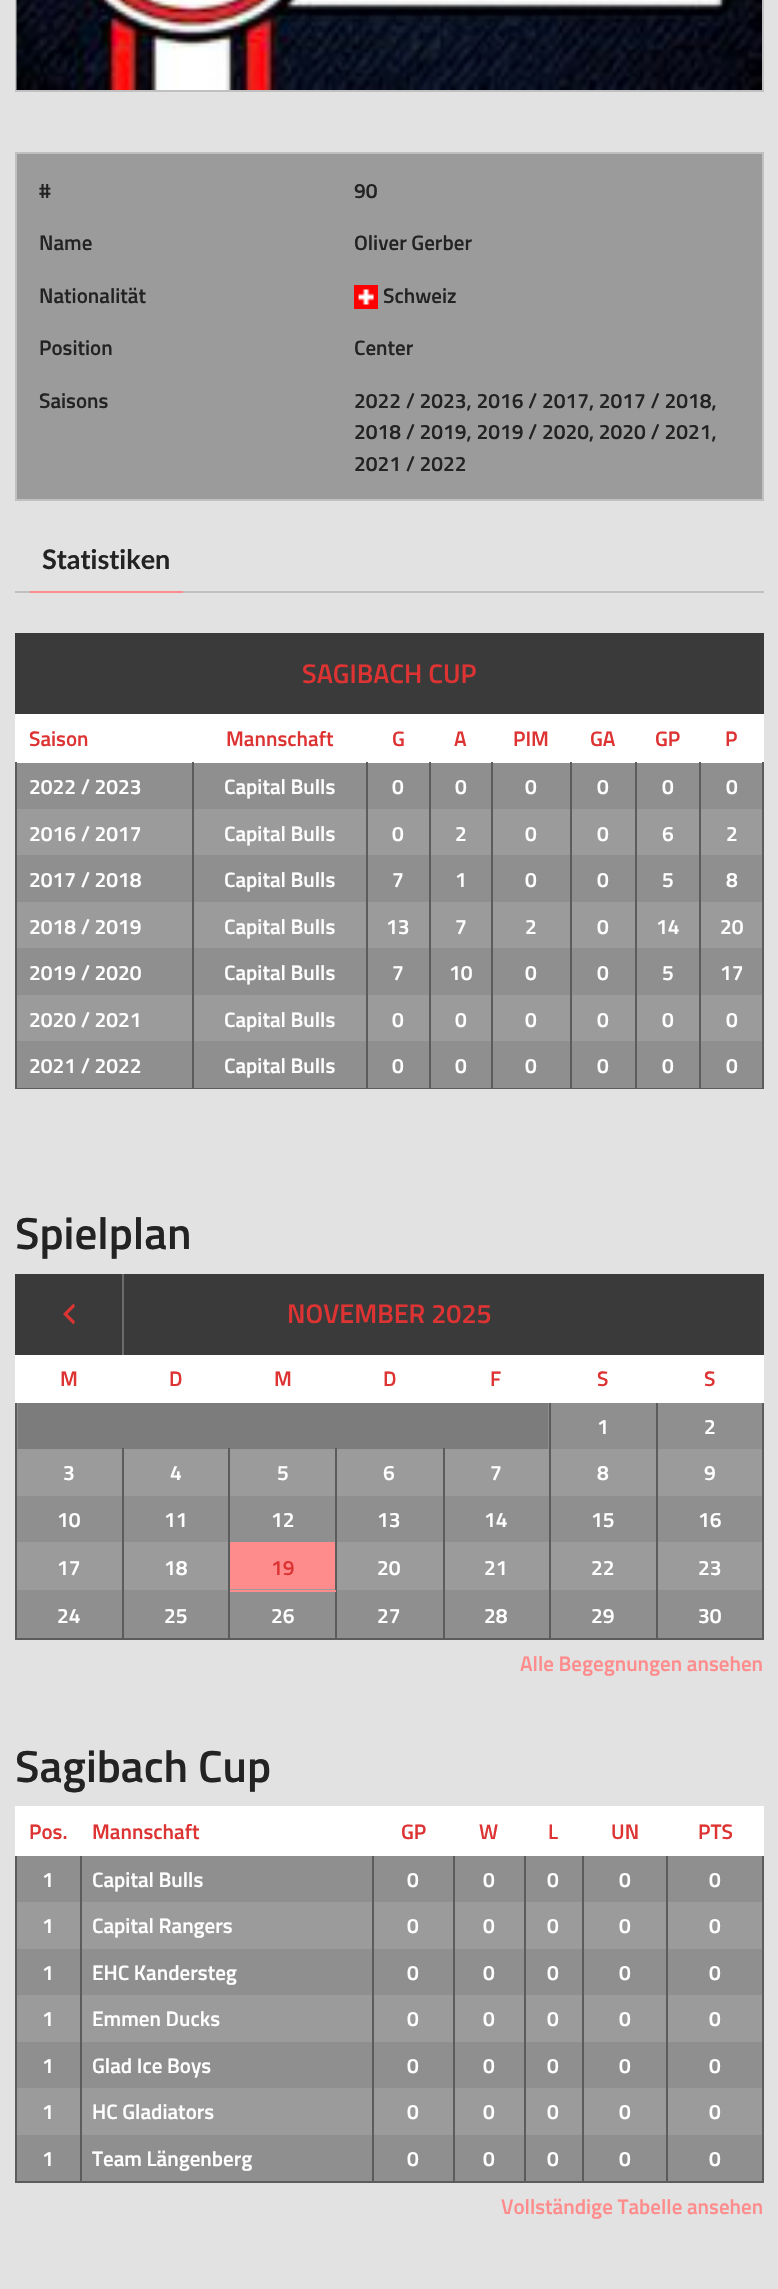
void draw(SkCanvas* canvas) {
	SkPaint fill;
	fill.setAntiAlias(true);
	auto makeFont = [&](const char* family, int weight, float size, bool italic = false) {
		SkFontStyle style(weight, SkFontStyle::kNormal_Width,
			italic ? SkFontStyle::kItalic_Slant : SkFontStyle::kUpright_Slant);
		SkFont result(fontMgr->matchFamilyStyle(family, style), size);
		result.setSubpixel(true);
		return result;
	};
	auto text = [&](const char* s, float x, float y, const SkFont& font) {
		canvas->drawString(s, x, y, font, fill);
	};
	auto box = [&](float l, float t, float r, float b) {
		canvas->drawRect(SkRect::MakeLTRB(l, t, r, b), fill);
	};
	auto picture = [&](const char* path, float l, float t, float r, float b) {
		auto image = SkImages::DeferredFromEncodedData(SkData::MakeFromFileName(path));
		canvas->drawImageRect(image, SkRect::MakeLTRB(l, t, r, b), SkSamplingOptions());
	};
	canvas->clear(0xFFE2E2E2);
	fill.setStyle(SkPaint::kStroke_Style);
	fill.setStrokeWidth(2);
	fill.setColor(0xFFC0C0C0);
	canvas->drawRect(SkRect::MakeLTRB(16, -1, 763, 91), fill);
	picture("image0.png", 16, 0, 762, 90);
	fill.setStyle(SkPaint::kFill_Style);
	fill.setColor(0xFF9B9B9B);
	canvas->drawRect(SkRect::MakeLTRB(16, 153, 763, 500), fill);
	fill.setStyle(SkPaint::kStroke_Style);
	fill.setColor(0xFFC0C0C0);
	canvas->drawRect(SkRect::MakeLTRB(16, 153, 763, 500), fill);
	picture("image1.png", 354, 285, 378, 309);
	fill.setStyle(SkPaint::kFill_Style);
	box(15, 591, 764, 593);
	fill.setColor(0xFFFF8C8C);
	box(30, 591, 183, 593);
	fill.setColor(0xFFFFFFFF);
	box(15, 714, 764, 715);
	box(15, 761, 764, 763);
	fill.setColor(0xFF5C5C5C);
	box(15, 761, 17, 810);
	fill.setColor(0xFFFFFFFF);
	box(15, 713, 17, 762);
	box(17, 715, 762, 761);
	fill.setColor(0xFF9B9B9B);
	box(17, 809, 762, 1041);
	fill.setColor(0xFF5C5C5C);
	box(762, 810, 764, 1089);
	box(15, 1088, 764, 1089);
	fill.setColor(0xFF8F8F8F);
	box(17, 763, 762, 809);
	box(17, 855, 762, 902);
	box(17, 948, 762, 995);
	box(17, 1041, 762, 1088);
	fill.setColor(0xFF5C5C5C);
	box(192, 761, 194, 1089);
	fill.setColor(0xFFFFFFFF);
	box(192, 713, 194, 762);
	fill.setColor(0xFF5C5C5C);
	box(366, 761, 368, 1089);
	fill.setColor(0xFFFFFFFF);
	box(366, 713, 368, 762);
	fill.setColor(0xFF5C5C5C);
	box(429, 761, 431, 1089);
	fill.setColor(0xFFFFFFFF);
	box(429, 713, 431, 762);
	fill.setColor(0xFF5C5C5C);
	box(491, 761, 493, 1089);
	fill.setColor(0xFFFFFFFF);
	box(491, 713, 493, 762);
	fill.setColor(0xFF5C5C5C);
	box(570, 761, 572, 1089);
	fill.setColor(0xFFFFFFFF);
	box(570, 713, 572, 762);
	fill.setColor(0xFF5C5C5C);
	box(635, 761, 637, 1089);
	fill.setColor(0xFFFFFFFF);
	box(635, 713, 637, 762);
	fill.setColor(0xFF5C5C5C);
	box(762, 761, 764, 810);
	fill.setColor(0xFFFFFFFF);
	box(762, 713, 764, 762);
	fill.setColor(0xFF5C5C5C);
	box(699, 761, 701, 1089);
	fill.setColor(0xFFFFFFFF);
	box(699, 713, 701, 762);
	fill.setColor(0xFF3A3A3A);
	box(15, 633, 764, 714);
	fill.setColor(0xFF5C5C5C);
	box(15, 810, 17, 1089);
	fill.setColor(0xFF9B9B9B);
	box(17, 1449, 762, 1590);
	fill.setColor(0xFF5C5C5C);
	box(762, 1449, 764, 1640);
	box(15, 1638, 764, 1640);
	box(15, 1449, 17, 1640);
	fill.setColor(0xFFFFFFFF);
	box(15, 1401, 764, 1403);
	fill.setColor(0xFF5C5C5C);
	box(15, 1401, 17, 1449);
	fill.setColor(0xFFFFFFFF);
	box(15, 1353, 17, 1403);
	box(17, 1355, 762, 1401);
	fill.setColor(0xFF8F8F8F);
	box(17, 1403, 762, 1449);
	box(17, 1496, 762, 1542);
	box(17, 1590, 762, 1638);
	fill.setColor(0xFF5C5C5C);
	box(549, 1401, 551, 1640);
	fill.setColor(0xFFFFFFFF);
	box(549, 1353, 551, 1403);
	fill.setColor(0xFF5C5C5C);
	box(762, 1401, 764, 1449);
	fill.setColor(0xFFFFFFFF);
	box(762, 1353, 764, 1403);
	fill.setColor(0xFF5C5C5C);
	box(656, 1401, 658, 1640);
	fill.setColor(0xFFFFFFFF);
	box(656, 1353, 658, 1403);
	fill.setColor(0xFF3A3A3A);
	box(15, 1274, 764, 1355);
	fill.setColor(0xFF6B6B6B);
	box(122, 1274, 124, 1355);
	fill.setColor(0xFFDD3333);
	canvas->drawPath(SkPathBuilder().moveTo(75, 1306.5f).lineTo(67.5f, 1314).lineTo(75, 1321.5f).lineTo(73.5f, 1324.5f).lineTo(63, 1314).lineTo(73.5f, 1303.5f).close().detach(), fill);
	fill.setColor(0xFF7C7C7C);
	box(18, 1403, 548, 1449);
	fill.setColor(0xFF5C5C5C);
	box(335, 1542, 337, 1640);
	fill.setColor(0xFFFF8C8C);
	box(228, 1542, 336, 1544);
	fill.setColor(0xFF5C5C5C);
	box(335, 1448, 337, 1544);
	box(228, 1590, 230, 1640);
	fill.setColor(0xFFFF8C8C);
	box(228, 1590, 336, 1592);
	fill.setColor(0xFF5C5C5C);
	box(228, 1448, 230, 1592);
	fill.setColor(0xFFFF8C8C);
	box(230, 1544, 335, 1589);
	fill.setColor(0xFF5C5C5C);
	box(122, 1448, 124, 1640);
	box(443, 1448, 445, 1640);
	fill.setColor(0xFF9B9B9B);
	box(17, 1902, 762, 2135);
	fill.setColor(0xFF5C5C5C);
	box(762, 1902, 764, 2183);
	box(15, 2181, 764, 2183);
	box(15, 1902, 17, 2183);
	fill.setColor(0xFFFFFFFF);
	box(17, 1808, 762, 1854);
	box(15, 1806, 764, 1808);
	box(15, 1854, 764, 1856);
	fill.setColor(0xFF5C5C5C);
	box(15, 1854, 17, 1902);
	fill.setColor(0xFFFFFFFF);
	box(15, 1806, 17, 1856);
	fill.setColor(0xFF8F8F8F);
	box(17, 1856, 762, 1902);
	box(17, 1949, 762, 1995);
	box(17, 2042, 762, 2088);
	box(17, 2135, 762, 2181);
	fill.setColor(0xFF5C5C5C);
	box(80, 1854, 82, 2183);
	fill.setColor(0xFFFFFFFF);
	box(80, 1854, 82, 1856);
	fill.setColor(0xFF5C5C5C);
	box(372, 1854, 374, 2183);
	fill.setColor(0xFFFFFFFF);
	box(372, 1854, 374, 1856);
	fill.setColor(0xFF5C5C5C);
	box(453, 1854, 455, 2183);
	fill.setColor(0xFFFFFFFF);
	box(453, 1854, 455, 1856);
	fill.setColor(0xFF5C5C5C);
	box(524, 1854, 526, 2183);
	fill.setColor(0xFFFFFFFF);
	box(524, 1854, 526, 1856);
	fill.setColor(0xFF5C5C5C);
	box(582, 1854, 584, 2183);
	fill.setColor(0xFFFFFFFF);
	box(582, 1854, 584, 1856);
	fill.setColor(0xFF5C5C5C);
	box(762, 1854, 764, 1902);
	fill.setColor(0xFFFFFFFF);
	box(762, 1806, 764, 1856);
	fill.setColor(0xFF5C5C5C);
	box(666, 1854, 668, 2183);
	fill.setColor(0xFFFFFFFF);
	box(666, 1854, 668, 1856);
	auto font1 = makeFont("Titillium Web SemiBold", 600, 21);
	fill.setColor(0xFF232323);
	text("#", 39, 198, font1);
	text("90", 354, 198, font1);
	text("Name", 39, 250, font1);
	text("Oliver Gerber", 354, 250, font1);
	text("Nationalität", 39, 303, font1);
	text("Schweiz", 383, 303, font1);
	text("Position", 39, 355, font1);
	text("Center", 354, 355, font1);
	text("Saisons", 39, 408, font1);
	text("2022 / 2023, 2016 / 2017, 2017 / 2018,", 354, 408, font1);
	text("2018 / 2019, 2019 / 2020, 2020 / 2021,", 354, 439, font1);
	text("2021 / 2022", 354, 471, font1);
	auto font2 = makeFont("Lato", 700, 27);
	text("Statistiken", 42, 569, font2);
	auto font3 = makeFont("Titillium Web SemiBold", 600, 27);
	fill.setColor(0xFFDD3333);
	text("SAGIBACH CUP", 302, 683, font3);
	text("Saison", 29, 746, font1);
	text("Mannschaft", 226, 746, font1);
	text("G", 392, 746, font1);
	text("A", 454, 746, font1);
	text("PIM", 513, 746, font1);
	text("GA", 590, 746, font1);
	text("GP", 655, 746, font1);
	text("P", 725, 746, font1);
	fill.setColor(0xFFFFFFFF);
	text("2022 / 2023", 29, 794, font1);
	text("Capital Bulls", 224, 794, font1);
	text("0", 392, 794, font1);
	text("0", 455, 794, font1);
	text("0", 525, 794, font1);
	text("0", 597, 794, font1);
	text("0", 662, 794, font1);
	text("0", 726, 794, font1);
	text("2016 / 2017", 29, 841, font1);
	text("Capital Bulls", 224, 841, font1);
	text("0", 392, 841, font1);
	text("2", 455, 841, font1);
	text("0", 525, 841, font1);
	text("0", 597, 841, font1);
	text("6", 662, 841, font1);
	text("2", 726, 841, font1);
	text("2017 / 2018", 29, 887, font1);
	text("Capital Bulls", 224, 887, font1);
	text("7", 392, 887, font1);
	text("1", 455, 887, font1);
	text("0", 525, 887, font1);
	text("0", 597, 887, font1);
	text("5", 662, 887, font1);
	text("8", 726, 887, font1);
	text("2018 / 2019", 29, 934, font1);
	text("Capital Bulls", 224, 934, font1);
	text("13", 386, 934, font1);
	text("7", 455, 934, font1);
	text("2", 525, 934, font1);
	text("0", 597, 934, font1);
	text("14", 656, 934, font1);
	text("20", 720, 934, font1);
	text("2019 / 2020", 29, 980, font1);
	text("Capital Bulls", 224, 980, font1);
	text("7", 392, 980, font1);
	text("10", 449, 980, font1);
	text("0", 525, 980, font1);
	text("0", 597, 980, font1);
	text("5", 662, 980, font1);
	text("17", 720, 980, font1);
	text("2020 / 2021", 29, 1027, font1);
	text("Capital Bulls", 224, 1027, font1);
	text("0", 392, 1027, font1);
	text("0", 455, 1027, font1);
	text("0", 525, 1027, font1);
	text("0", 597, 1027, font1);
	text("0", 662, 1027, font1);
	text("0", 726, 1027, font1);
	text("2021 / 2022", 29, 1073, font1);
	text("Capital Bulls", 224, 1073, font1);
	text("0", 392, 1073, font1);
	text("0", 455, 1073, font1);
	text("0", 525, 1073, font1);
	text("0", 597, 1073, font1);
	text("0", 662, 1073, font1);
	text("0", 726, 1073, font1);
	auto font4 = makeFont("Titillium Web SemiBold", 600, 45);
	fill.setColor(0xFF232323);
	text("Spielplan", 15, 1249, font4);
	fill.setColor(0xFFDD3333);
	text("NOVEMBER 2025", 287, 1323, font3);
	text("M", 60, 1386, font1);
	text("D", 169, 1386, font1);
	text("M", 274, 1386, font1);
	text("D", 383, 1386, font1);
	text("F", 490, 1386, font1);
	text("S", 597, 1386, font1);
	text("S", 704, 1386, font1);
	fill.setColor(0xFFFFFFFF);
	text("1", 597, 1434, font1);
	text("2", 704, 1434, font1);
	text("3", 63, 1480, font1);
	text("4", 170, 1480, font1);
	text("5", 277, 1480, font1);
	text("6", 383, 1480, font1);
	text("7", 490, 1480, font1);
	text("8", 597, 1480, font1);
	text("9", 704, 1480, font1);
	text("10", 57, 1527, font1);
	text("11", 164, 1527, font1);
	text("12", 271, 1527, font1);
	text("13", 377, 1527, font1);
	text("14", 484, 1527, font1);
	text("15", 591, 1527, font1);
	text("16", 698, 1527, font1);
	text("17", 57, 1575, font1);
	text("18", 164, 1575, font1);
	fill.setColor(0xFFDD3333);
	text("19", 271, 1575, font1);
	fill.setColor(0xFFFFFFFF);
	text("20", 377, 1575, font1);
	text("21", 484, 1575, font1);
	text("22", 591, 1575, font1);
	text("23", 698, 1575, font1);
	text("24", 57, 1623, font1);
	text("25", 164, 1623, font1);
	text("26", 271, 1623, font1);
	text("27", 377, 1623, font1);
	text("28", 484, 1623, font1);
	text("29", 591, 1623, font1);
	text("30", 698, 1623, font1);
	fill.setColor(0xFFFF8C8C);
	text("Alle Begegnungen ansehen", 520, 1671, font1);
	fill.setColor(0xFF232323);
	text("Sagibach Cup", 15, 1782, font4);
	fill.setColor(0xFFDD3333);
	text("Pos.", 29, 1839, font1);
	text("Mannschaft", 92, 1839, font1);
	text("GP", 401, 1839, font1);
	text("W", 479, 1839, font1);
	text("L", 548, 1839, font1);
	text("UN", 611, 1839, font1);
	text("PTS", 698, 1839, font1);
	fill.setColor(0xFFFFFFFF);
	text("1", 42, 1887, font1);
	text("Capital Bulls", 92, 1887, font1);
	text("0", 407, 1887, font1);
	text("0", 483, 1887, font1);
	text("0", 547, 1887, font1);
	text("0", 619, 1887, font1);
	text("0", 709, 1887, font1);
	text("1", 42, 1933, font1);
	text("Capital Rangers", 92, 1933, font1);
	text("0", 407, 1933, font1);
	text("0", 483, 1933, font1);
	text("0", 547, 1933, font1);
	text("0", 619, 1933, font1);
	text("0", 709, 1933, font1);
	text("1", 42, 1980, font1);
	text("EHC Kandersteg", 92, 1980, font1);
	text("0", 407, 1980, font1);
	text("0", 483, 1980, font1);
	text("0", 547, 1980, font1);
	text("0", 619, 1980, font1);
	text("0", 709, 1980, font1);
	text("1", 42, 2026, font1);
	text("Emmen Ducks", 92, 2026, font1);
	text("0", 407, 2026, font1);
	text("0", 483, 2026, font1);
	text("0", 547, 2026, font1);
	text("0", 619, 2026, font1);
	text("0", 709, 2026, font1);
	text("1", 42, 2073, font1);
	text("Glad Ice Boys", 92, 2073, font1);
	text("0", 407, 2073, font1);
	text("0", 483, 2073, font1);
	text("0", 547, 2073, font1);
	text("0", 619, 2073, font1);
	text("0", 709, 2073, font1);
	text("1", 42, 2119, font1);
	text("HC Gladiators", 92, 2119, font1);
	text("0", 407, 2119, font1);
	text("0", 483, 2119, font1);
	text("0", 547, 2119, font1);
	text("0", 619, 2119, font1);
	text("0", 709, 2119, font1);
	text("1", 42, 2166, font1);
	text("Team Längenberg", 92, 2166, font1);
	text("0", 407, 2166, font1);
	text("0", 483, 2166, font1);
	text("0", 547, 2166, font1);
	text("0", 619, 2166, font1);
	text("0", 709, 2166, font1);
	fill.setColor(0xFFFF8C8C);
	text("Vollständige Tabelle ansehen", 501, 2214, font1);
}
